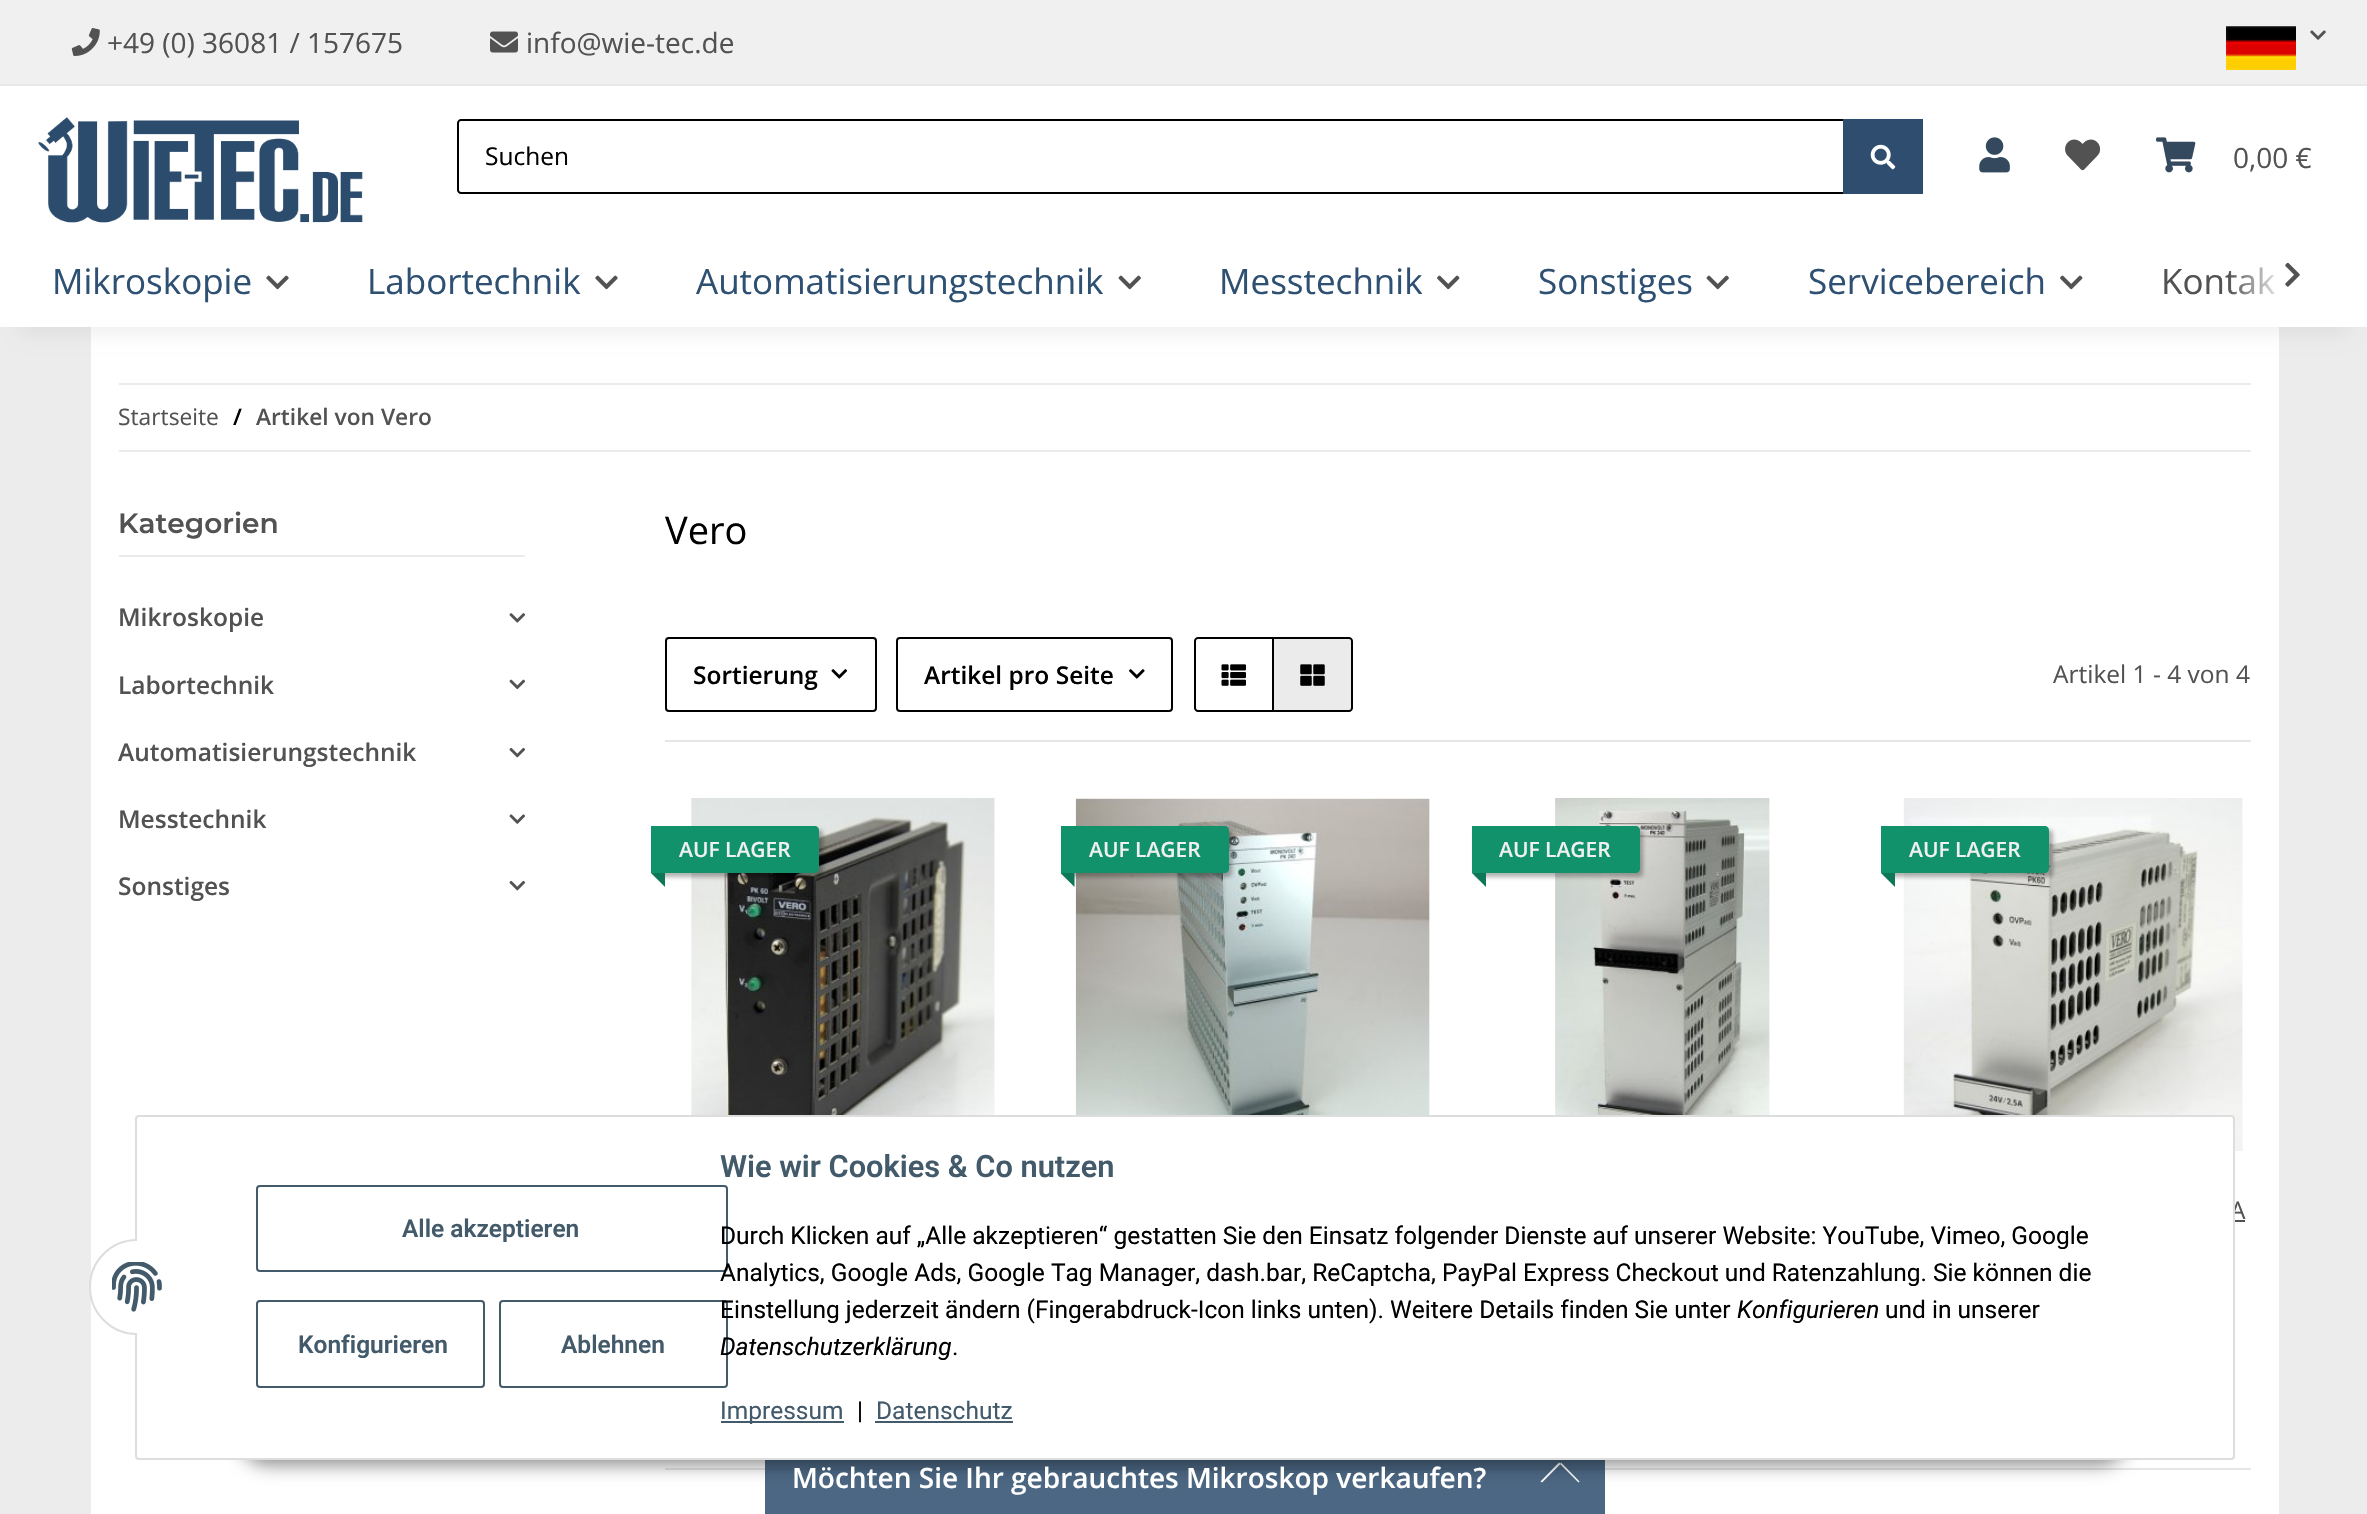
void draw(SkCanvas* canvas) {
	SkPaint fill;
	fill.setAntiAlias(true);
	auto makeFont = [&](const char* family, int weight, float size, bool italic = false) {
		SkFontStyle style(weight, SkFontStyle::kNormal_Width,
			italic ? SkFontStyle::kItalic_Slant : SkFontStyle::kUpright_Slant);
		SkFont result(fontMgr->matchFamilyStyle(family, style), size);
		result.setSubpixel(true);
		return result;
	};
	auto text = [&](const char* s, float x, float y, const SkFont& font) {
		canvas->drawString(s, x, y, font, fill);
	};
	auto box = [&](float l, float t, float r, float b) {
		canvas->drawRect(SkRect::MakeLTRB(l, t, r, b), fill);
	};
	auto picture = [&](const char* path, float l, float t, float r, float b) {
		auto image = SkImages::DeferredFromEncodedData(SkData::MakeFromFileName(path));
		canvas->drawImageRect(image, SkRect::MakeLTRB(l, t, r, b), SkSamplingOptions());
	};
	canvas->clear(0xFFECECEC);
	fill.setColor(0xFFF0F0F0);
	box(0, 0, 2367, 84);
	fill.setColor(0xFFE9E9E9);
	box(0, 84, 2367, 86);
	picture("image0.png", 71, 28, 100, 56);
	picture("image1.png", 490, 31, 518, 53);
	picture("image2.png", 2226, 26, 2296, 70);
	picture("image3.png", 2310, 30, 2326, 40);
	fill.setColor(0xFFFFFFFF);
	box(91, 327, 2279, 1514);
	fill.setColor(0x0F000000);
	fill.setMaskFilter(SkMaskFilter::MakeBlur(kNormal_SkBlurStyle, 8));
	canvas->drawRect(SkRect::MakeLTRB(21, 135, 2347, 334), fill);
	fill.setMaskFilter(nullptr);
	fill.setColor(0xFFFFFFFF);
	box(0, 86, 2367, 327);
	picture("image4.png", 38, 117, 363, 223);
	fill.setStyle(SkPaint::kStroke_Style);
	fill.setStrokeWidth(2);
	fill.setColor(0xFF000000);
	canvas->drawPath(SkPathBuilder().moveTo(461, 120).lineTo(1844, 120).lineTo(1844, 193).lineTo(461, 193).cubicTo(459.5f, 193, 458, 191.5f, 458, 190).lineTo(458, 123).cubicTo(458, 121.5f, 459.5f, 120, 461, 120).close().detach(), fill);
	fill.setStyle(SkPaint::kFill_Style);
	fill.setColor(0xFF2F4E6F);
	box(1843, 119, 1923, 194);
	picture("image5.png", 1870, 144, 1896, 170);
	picture("image6.png", 1979, 137, 2010, 173);
	picture("image7.png", 2065, 139, 2101, 171);
	picture("image8.png", 2156, 137, 2196, 173);
	picture("image9.png", 2285, 262, 2300, 287);
	picture("image10.png", 266, 275, 289, 290);
	picture("image10.png", 595, 275, 618, 290);
	picture("image11.png", 1118, 275, 1141, 290);
	picture("image12.png", 1437, 275, 1460, 290);
	picture("image11.png", 1706, 275, 1729, 290);
	picture("image12.png", 2060, 275, 2083, 290);
	fill.setColor(0xFF4C6783);
	box(765, 1460, 1605, 1514);
	fill.setColor(0xFFEBEBEB);
	box(119, 383, 2251, 385);
	box(119, 450, 2251, 452);
	box(119, 555, 525, 557);
	picture("image13.png", 509, 613, 526, 623);
	picture("image14.png", 509, 679, 526, 690);
	picture("image15.png", 509, 747, 526, 758);
	picture("image16.png", 509, 814, 525, 824);
	picture("image15.png", 509, 880, 526, 891);
	fill.setStyle(SkPaint::kStroke_Style);
	fill.setColor(0xFF000000);
	canvas->drawRoundRect(SkRect::MakeLTRB(666, 638, 876, 711), 3, 3, fill);
	picture("image17.png", 831, 669, 848, 679);
	canvas->drawRoundRect(SkRect::MakeLTRB(897, 638, 1172, 711), 3, 3, fill);
	picture("image18.png", 1129, 669, 1145, 679);
	canvas->drawPath(SkPathBuilder().moveTo(1198, 638).lineTo(1273, 638).lineTo(1273, 711).lineTo(1198, 711).cubicTo(1196.5f, 711, 1195, 709.5f, 1195, 708).lineTo(1195, 641).cubicTo(1195, 639.5f, 1196.5f, 638, 1198, 638).close().detach(), fill);
	picture("image19.png", 1221, 664, 1246, 686);
	fill.setStyle(SkPaint::kFill_Style);
	fill.setColor(0xFFEBEBEB);
	canvas->drawPath(SkPathBuilder().moveTo(1273, 638).lineTo(1349, 638).cubicTo(1350.5f, 638, 1352, 639.5f, 1352, 641).lineTo(1352, 708).cubicTo(1352, 709.5f, 1350.5f, 711, 1349, 711).lineTo(1273, 711).close().detach(), fill);
	fill.setStyle(SkPaint::kStroke_Style);
	fill.setColor(0xFF000000);
	canvas->drawPath(SkPathBuilder().moveTo(1273, 638).lineTo(1349, 638).cubicTo(1350.5f, 638, 1352, 639.5f, 1352, 641).lineTo(1352, 708).cubicTo(1352, 709.5f, 1350.5f, 711, 1349, 711).lineTo(1273, 711).close().detach(), fill);
	picture("image20.png", 1300, 664, 1325, 686);
	fill.setStyle(SkPaint::kFill_Style);
	fill.setColor(0xFFE6E6E6);
	box(665, 740, 2251, 742);
	picture("image21.png", 691, 798, 995, 1115);
	fill.setColor(0x4D000000);
	fill.setMaskFilter(SkMaskFilter::MakeBlur(kNormal_SkBlurStyle, 2));
	canvas->drawRoundRect(SkRect::MakeLTRB(655, 830, 823, 877), 4, 4, fill);
	fill.setMaskFilter(nullptr);
	fill.setColor(0xFF11926B);
	canvas->drawPath(SkPathBuilder().moveTo(651, 826).lineTo(815, 826).cubicTo(817, 826, 819, 828, 819, 830).lineTo(819, 869).cubicTo(819, 871, 817, 873, 815, 873).lineTo(651, 873).close().detach(), fill);
	fill.setColor(0xFF0E7757);
	canvas->drawPath(SkPathBuilder().moveTo(665, 873).lineTo(665, 887).lineTo(651, 873).close().detach(), fill);
	picture("image22.png", 1075, 798, 1430, 1115);
	fill.setColor(0x4D000000);
	fill.setMaskFilter(SkMaskFilter::MakeBlur(kNormal_SkBlurStyle, 2));
	canvas->drawRoundRect(SkRect::MakeLTRB(1064, 830, 1232, 877), 4, 4, fill);
	fill.setMaskFilter(nullptr);
	fill.setColor(0xFF11926B);
	canvas->drawPath(SkPathBuilder().moveTo(1061, 826).lineTo(1225, 826).cubicTo(1227, 826, 1229, 828, 1229, 830).lineTo(1229, 869).cubicTo(1229, 871, 1227, 873, 1225, 873).lineTo(1061, 873).close().detach(), fill);
	fill.setColor(0xFF0E7757);
	canvas->drawPath(SkPathBuilder().moveTo(1074.5f, 873).lineTo(1074.5f, 887).lineTo(1060.5f, 873).close().detach(), fill);
	picture("image23.png", 1555, 798, 1770, 1115);
	fill.setColor(0x4D000000);
	fill.setMaskFilter(SkMaskFilter::MakeBlur(kNormal_SkBlurStyle, 2));
	canvas->drawRoundRect(SkRect::MakeLTRB(1475, 830, 1643, 877), 4, 4, fill);
	fill.setMaskFilter(nullptr);
	fill.setColor(0xFF11926B);
	canvas->drawPath(SkPathBuilder().moveTo(1472, 826).lineTo(1636, 826).cubicTo(1638, 826, 1640, 828, 1640, 830).lineTo(1640, 869).cubicTo(1640, 871, 1638, 873, 1636, 873).lineTo(1472, 873).close().detach(), fill);
	fill.setColor(0xFF0E7757);
	canvas->drawPath(SkPathBuilder().moveTo(1486, 873).lineTo(1486, 887).lineTo(1472, 873).close().detach(), fill);
	picture("image24.png", 1903, 798, 2243, 1151);
	fill.setColor(0x4D000000);
	fill.setMaskFilter(SkMaskFilter::MakeBlur(kNormal_SkBlurStyle, 2));
	canvas->drawRoundRect(SkRect::MakeLTRB(1885, 830, 2053, 877), 4, 4, fill);
	fill.setMaskFilter(nullptr);
	fill.setColor(0xFF11926B);
	canvas->drawPath(SkPathBuilder().moveTo(1881, 826).lineTo(2045, 826).cubicTo(2047, 826, 2049, 828, 2049, 830).lineTo(2049, 869).cubicTo(2049, 871, 2047, 873, 2045, 873).lineTo(1881, 873).close().detach(), fill);
	fill.setColor(0xFF0E7757);
	canvas->drawPath(SkPathBuilder().moveTo(1895, 873).lineTo(1895, 887).lineTo(1881, 873).close().detach(), fill);
	fill.setColor(0xFF525252);
	box(2235, 1220, 2245, 1222);
	fill.setColor(0xFFE6E6E6);
	box(665, 1468, 2251, 1470);
	fill.setColor(0xFF48637F);
	box(765, 1468, 1605, 1470);
	fill.setColor(0xFFFFFFFF);
	canvas->drawPath(SkPathBuilder().moveTo(1561, 1462.5f).lineTo(1579.5f, 1481.5f).lineTo(1578.5f, 1482.5f).lineTo(1560, 1464).close().detach(), fill);
	canvas->drawPath(SkPathBuilder().moveTo(1540.5f, 1481.5f).lineTo(1559, 1462.5f).lineTo(1560.5f, 1464).lineTo(1542, 1482.5f).close().detach(), fill);
	fill.setColor(0x73000000);
	fill.setMaskFilter(SkMaskFilter::MakeBlur(kNormal_SkBlurStyle, 9));
	canvas->drawRoundRect(SkRect::MakeLTRB(240, 1409, 2128, 1465), 28, 28, fill);
	fill.setMaskFilter(nullptr);
	auto font1 = makeFont("Open Sans", 400, 28);
	fill.setColor(0xFF525252);
	text("+49 (0) 36081 / 157675", 107, 53, font1);
	text("info@wie-tec.de", 526, 53, font1);
	auto font2 = makeFont("Open Sans", 400, 24.5f);
	fill.setColor(0xFF000000);
	text("Suchen", 485, 165, font2);
	fill.setColor(0xFF525252);
	text("0,00 €", 2233, 168, font1);
	auto font3 = makeFont("Open Sans", 400, 35);
	fill.setColor(0xFF2E5072);
	text("Mikroskopie", 52, 294, font3);
	text("Labortechnik", 367, 294, font3);
	text("Automatisierungstechnik", 696, 294, font3);
	text("Messtechnik", 1219, 294, font3);
	text("Sonstiges", 1538, 294, font3);
	text("Servicebereich", 1808, 294, font3);
	fill.setColor(0xFF525252);
	text("Kontak", 2161, 294, font3);
	{
		const SkColor colors[] = {0x03FFFFFF, 0xFFFFFFFF};
		const float stops[] = {0, 0.7f};
		const SkPoint ends[] = {{2228, 277}, {2312, 277}};
		fill.setShader(SkGradientShader::MakeLinear(ends, colors, stops, 2, SkTileMode::kClamp));
		fill.setAlpha(255);
	}
	box(2229, 267, 2276, 295);
	auto font4 = makeFont("Open Sans", 400, 22.75f);
	fill.setShader(nullptr);
	fill.setColor(0xFF525252);
	text("Startseite", 118, 425, font4);
	auto font5 = makeFont("Open Sans", 600, 22.75f);
	fill.setColor(0xFF000000);
	text("/", 233, 425, font5);
	fill.setColor(0xFF525252);
	text("Artikel von Vero", 256, 425, font5);
	auto font6 = makeFont("Montserrat", 600, 28);
	text("Kategorien", 118, 533, font6);
	auto font7 = makeFont("Open Sans", 600, 24.5f);
	text("Mikroskopie", 118, 626, font7);
	text("Labortechnik", 118, 694, font7);
	text("Automatisierungstechnik", 118, 761, font7);
	text("Messtechnik", 118, 828, font7);
	text("Sonstiges", 118, 895, font7);
	auto font8 = makeFont("Open Sans", 400, 38);
	fill.setColor(0xFF000000);
	text("Vero", 665, 544, font8);
	text("Sortierung", 693, 684, font7);
	text("Artikel pro Seite", 924, 684, font7);
	fill.setColor(0xFF525252);
	text("Artikel 1 - 4 von 4", 2053, 683, font2);
	auto font9 = makeFont("Open Sans", 600, 21);
	fill.setColor(0xFFF0F0F0);
	text("AUF LAGER", 679, 857, font9);
	text("AUF LAGER", 1089, 857, font9);
	text("AUF LAGER", 1499, 857, font9);
	text("AUF LAGER", 1909, 857, font9);
	fill.setColor(0xFF525252);
	text("A", 2230, 1219, font2);
	fill.setColor(0xFFFFFFFF);
	canvas->drawRoundRect(SkRect::MakeLTRB(136, 1116, 2234, 1459), 3, 3, fill);
	fill.setStyle(SkPaint::kStroke_Style);
	fill.setColor(0xFFDDDDDD);
	canvas->drawRoundRect(SkRect::MakeLTRB(136, 1116, 2234, 1459), 3, 3, fill);
	fill.setStyle(SkPaint::kFill_Style);
	fill.setColor(0xFFFFFFFF);
	canvas->drawRoundRect(SkRect::MakeLTRB(90, 1240, 185, 1334), 47, 47, fill);
	fill.setStyle(SkPaint::kStroke_Style);
	fill.setColor(0xFFDDDDDD);
	canvas->drawRoundRect(SkRect::MakeLTRB(90, 1240, 185, 1334), 47, 47, fill);
	fill.setStyle(SkPaint::kFill_Style);
	fill.setColor(0xFFFFFFFF);
	box(137, 1239, 186, 1335);
	picture("image25.png", 112, 1262, 162, 1312);
	fill.setStyle(SkPaint::kStroke_Style);
	fill.setColor(0xFF435A6B);
	canvas->drawRoundRect(SkRect::MakeLTRB(257, 1186, 727, 1271), 3, 3, fill);
	auto font10 = makeFont("Roboto", 600, 24.5f);
	fill.setStyle(SkPaint::kFill_Style);
	text("Alle akzeptieren", 402, 1237, font10);
	fill.setStyle(SkPaint::kStroke_Style);
	canvas->drawRoundRect(SkRect::MakeLTRB(257, 1301, 484, 1387), 3, 3, fill);
	fill.setStyle(SkPaint::kFill_Style);
	text("Konfigurieren", 298, 1353, font10);
	fill.setStyle(SkPaint::kStroke_Style);
	canvas->drawRoundRect(SkRect::MakeLTRB(500, 1301, 727, 1387), 3, 3, fill);
	fill.setStyle(SkPaint::kFill_Style);
	text("Ablehnen", 561, 1353, font10);
	auto font11 = makeFont("Roboto", 600, 30.75f);
	text("Wie wir Cookies & Co nutzen", 720, 1177, font11);
	auto font12 = makeFont("Roboto", 400, 24.5f);
	fill.setColor(0xFF000000);
	text("Durch Klicken auf „Alle akzeptieren“ gestatten Sie den Einsatz folgender Dienste auf unserer Website: YouTube, Vimeo, Google", 720, 1244, font12);
	text("Analytics, Google Ads, Google Tag Manager, dash.bar, ReCaptcha, PayPal Express Checkout und Ratenzahlung. Sie können die", 720, 1281, font12);
	text("Einstellung jederzeit ändern (Fingerabdruck-Icon links unten). Weitere Details finden Sie unter", 720, 1318, font12);
	auto font13 = makeFont("Roboto", 400, 24.5f, true);
	text("Konfigurieren", 1737, 1318, font13);
	text("und in unserer", 1885, 1318, font12);
	text("Datenschutzerklärung", 720, 1355, font13);
	text(".", 952, 1355, font12);
	fill.setColor(0xFF435A6B);
	box(721, 1421, 844, 1423);
	text("Impressum", 720, 1419, font12);
	fill.setColor(0xFF000000);
	text("|", 857, 1419, font12);
	fill.setColor(0xFF435A6B);
	text("Datenschutz", 876, 1419, font12);
	box(875, 1421, 1013, 1423);
	auto font14 = makeFont("Open Sans", 600, 28);
	fill.setColor(0xFFFFFFFF);
	text("Möchten Sie Ihr gebrauchtes Mikroskop verkaufen?", 792, 1488, font14);
}
